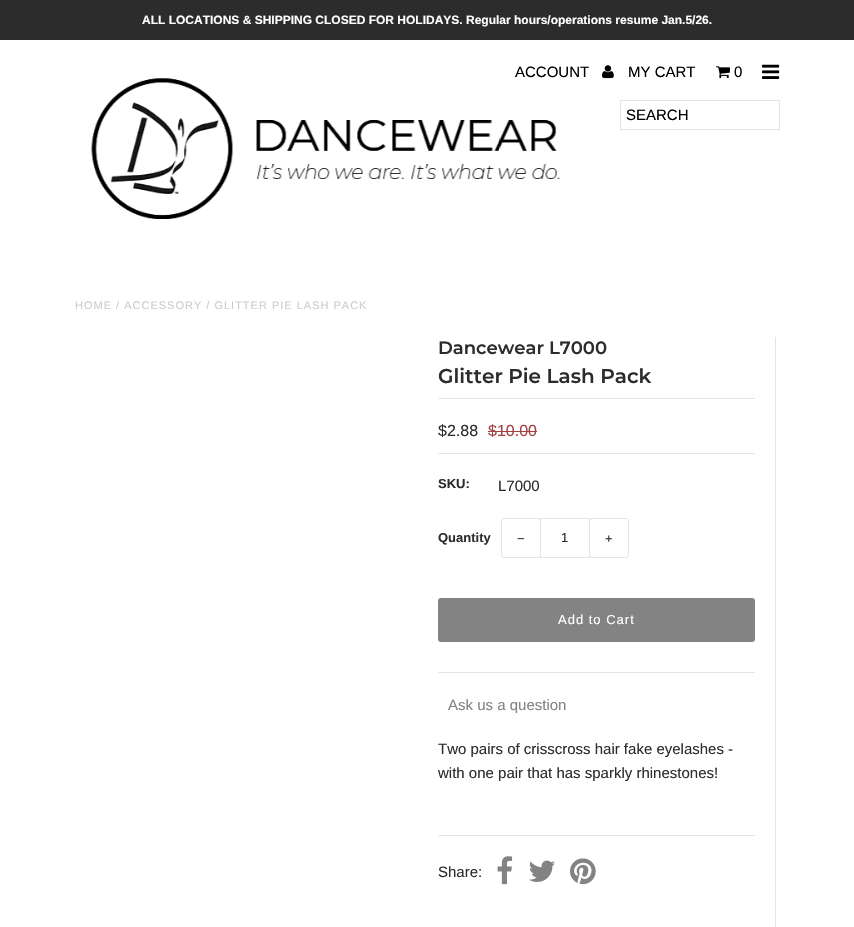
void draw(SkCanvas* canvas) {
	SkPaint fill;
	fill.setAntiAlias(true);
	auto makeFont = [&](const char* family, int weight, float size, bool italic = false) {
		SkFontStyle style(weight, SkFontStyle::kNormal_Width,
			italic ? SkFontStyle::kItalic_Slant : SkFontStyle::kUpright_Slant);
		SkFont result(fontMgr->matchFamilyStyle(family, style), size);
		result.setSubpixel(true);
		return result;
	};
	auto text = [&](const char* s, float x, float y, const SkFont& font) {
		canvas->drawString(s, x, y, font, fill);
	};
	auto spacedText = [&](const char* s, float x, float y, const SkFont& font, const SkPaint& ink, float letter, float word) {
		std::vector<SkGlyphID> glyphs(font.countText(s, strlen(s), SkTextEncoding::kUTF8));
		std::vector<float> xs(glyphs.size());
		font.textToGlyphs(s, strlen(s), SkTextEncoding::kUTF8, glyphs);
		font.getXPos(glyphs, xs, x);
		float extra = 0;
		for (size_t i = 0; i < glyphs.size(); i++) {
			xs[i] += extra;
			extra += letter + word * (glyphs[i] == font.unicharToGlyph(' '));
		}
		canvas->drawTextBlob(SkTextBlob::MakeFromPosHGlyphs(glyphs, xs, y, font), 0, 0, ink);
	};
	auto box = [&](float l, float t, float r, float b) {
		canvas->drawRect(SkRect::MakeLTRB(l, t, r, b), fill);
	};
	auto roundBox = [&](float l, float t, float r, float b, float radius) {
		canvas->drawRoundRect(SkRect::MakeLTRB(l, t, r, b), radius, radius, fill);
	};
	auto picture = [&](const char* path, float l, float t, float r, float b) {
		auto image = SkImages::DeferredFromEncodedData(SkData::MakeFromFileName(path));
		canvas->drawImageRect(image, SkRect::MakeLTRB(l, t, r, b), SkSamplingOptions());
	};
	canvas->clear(0xFFFFFFFF);
	fill.setColor(0xFF2C2C2C);
	box(0, 0, 854, 40);
	picture("image0.png", 91, 78, 560, 219);
	picture("image1.png", 602, 65, 614, 79);
	picture("image2.png", 716, 66, 730, 79);
	picture("image3.png", 762, 64, 780, 79);
	fill.setStyle(SkPaint::kStroke_Style);
	fill.setStrokeWidth(1);
	fill.setColor(0xFFE5E5E5);
	canvas->drawRect(SkRect::MakeLTRB(620.5f, 100.5f, 779.5f, 129.5f), fill);
	fill.setStyle(SkPaint::kFill_Style);
	box(775, 337, 776, 927);
	box(438, 398, 755, 399);
	box(438, 672, 755, 673);
	box(438, 453, 755, 454);
	fill.setColor(0xFFA44141);
	box(488, 431, 537, 432);
	fill.setStyle(SkPaint::kStroke_Style);
	fill.setColor(0xFFE5E5E5);
	canvas->drawRoundRect(SkRect::MakeLTRB(501.5f, 518.5f, 540.5f, 557.5f), 2.5f, 2.5f, fill);
	canvas->drawRect(SkRect::MakeLTRB(540.5f, 518.5f, 589.5f, 557.5f), fill);
	canvas->drawRoundRect(SkRect::MakeLTRB(589.5f, 518.5f, 628.5f, 557.5f), 2.5f, 2.5f, fill);
	fill.setStyle(SkPaint::kFill_Style);
	fill.setColor(0xFF838383);
	roundBox(438, 598, 755, 642, 3);
	fill.setColor(0xFFE5E5E5);
	box(438, 835, 755, 836);
	picture("image4.png", 497, 856, 513, 885);
	picture("image5.png", 529, 860, 555, 882);
	picture("image6.png", 570, 858, 596, 885);
	auto font1 = makeFont("Liberation Sans", 700, 12);
	fill.setColor(0xFFFFFFFF);
	text("ALL LOCATIONS & SHIPPING CLOSED FOR HOLIDAYS. Regular hours/operations resume Jan.5/26.", 142, 24, font1);
	auto font2 = makeFont("Liberation Sans", 400, 15);
	fill.setColor(0xFF000000);
	text("ACCOUNT", 515, 77, font2);
	text("MY CART", 628, 77, font2);
	text("0", 734, 77, font2);
	text("SEARCH", 626, 120, font2);
	auto font3 = makeFont("Liberation Sans", 400, 11);
	fill.setColor(0xFFCCCCCC);
	spacedText("HOME / ACCESSORY / GLITTER PIE LASH PACK", 75, 309, font3, fill, 1, 0);
	auto font4 = makeFont("Montserrat", 600, 18);
	fill.setColor(0xFF2C2C2C);
	text("Dancewear L7000", 438, 354, font4);
	auto font5 = makeFont("Montserrat", 600, 20);
	text("Glitter Pie Lash Pack", 438, 383, font5);
	auto font6 = makeFont("Liberation Sans", 400, 16);
	text("$2.88", 438, 436, font6);
	fill.setColor(0xFFA44141);
	text("$10.00", 488, 436, font6);
	auto font7 = makeFont("Liberation Sans", 700, 13);
	fill.setColor(0xFF2C2C2C);
	text("SKU:", 438, 488, font7);
	text("L7000", 498, 491, font2);
	text("Quantity", 438, 542, font7);
	auto font8 = makeFont("Liberation Sans", 400, 13);
	spacedText("−", 517, 543, font8, fill, 1, 0);
	text("1", 561, 542, font8);
	spacedText("+", 605, 543, font8, fill, 1, 0);
	fill.setColor(0xFFFFFFFF);
	spacedText("Add to Cart", 558, 624, font8, fill, 1, 0);
	fill.setColor(0xFF838383);
	text("Ask us a question", 448, 710, font2);
	fill.setColor(0xFF2C2C2C);
	text("Two pairs of crisscross hair fake eyelashes -", 438, 754, font2);
	text("with one pair that has sparkly rhinestones!", 438, 778, font2);
	text("Share:", 438, 877, font2);
}
